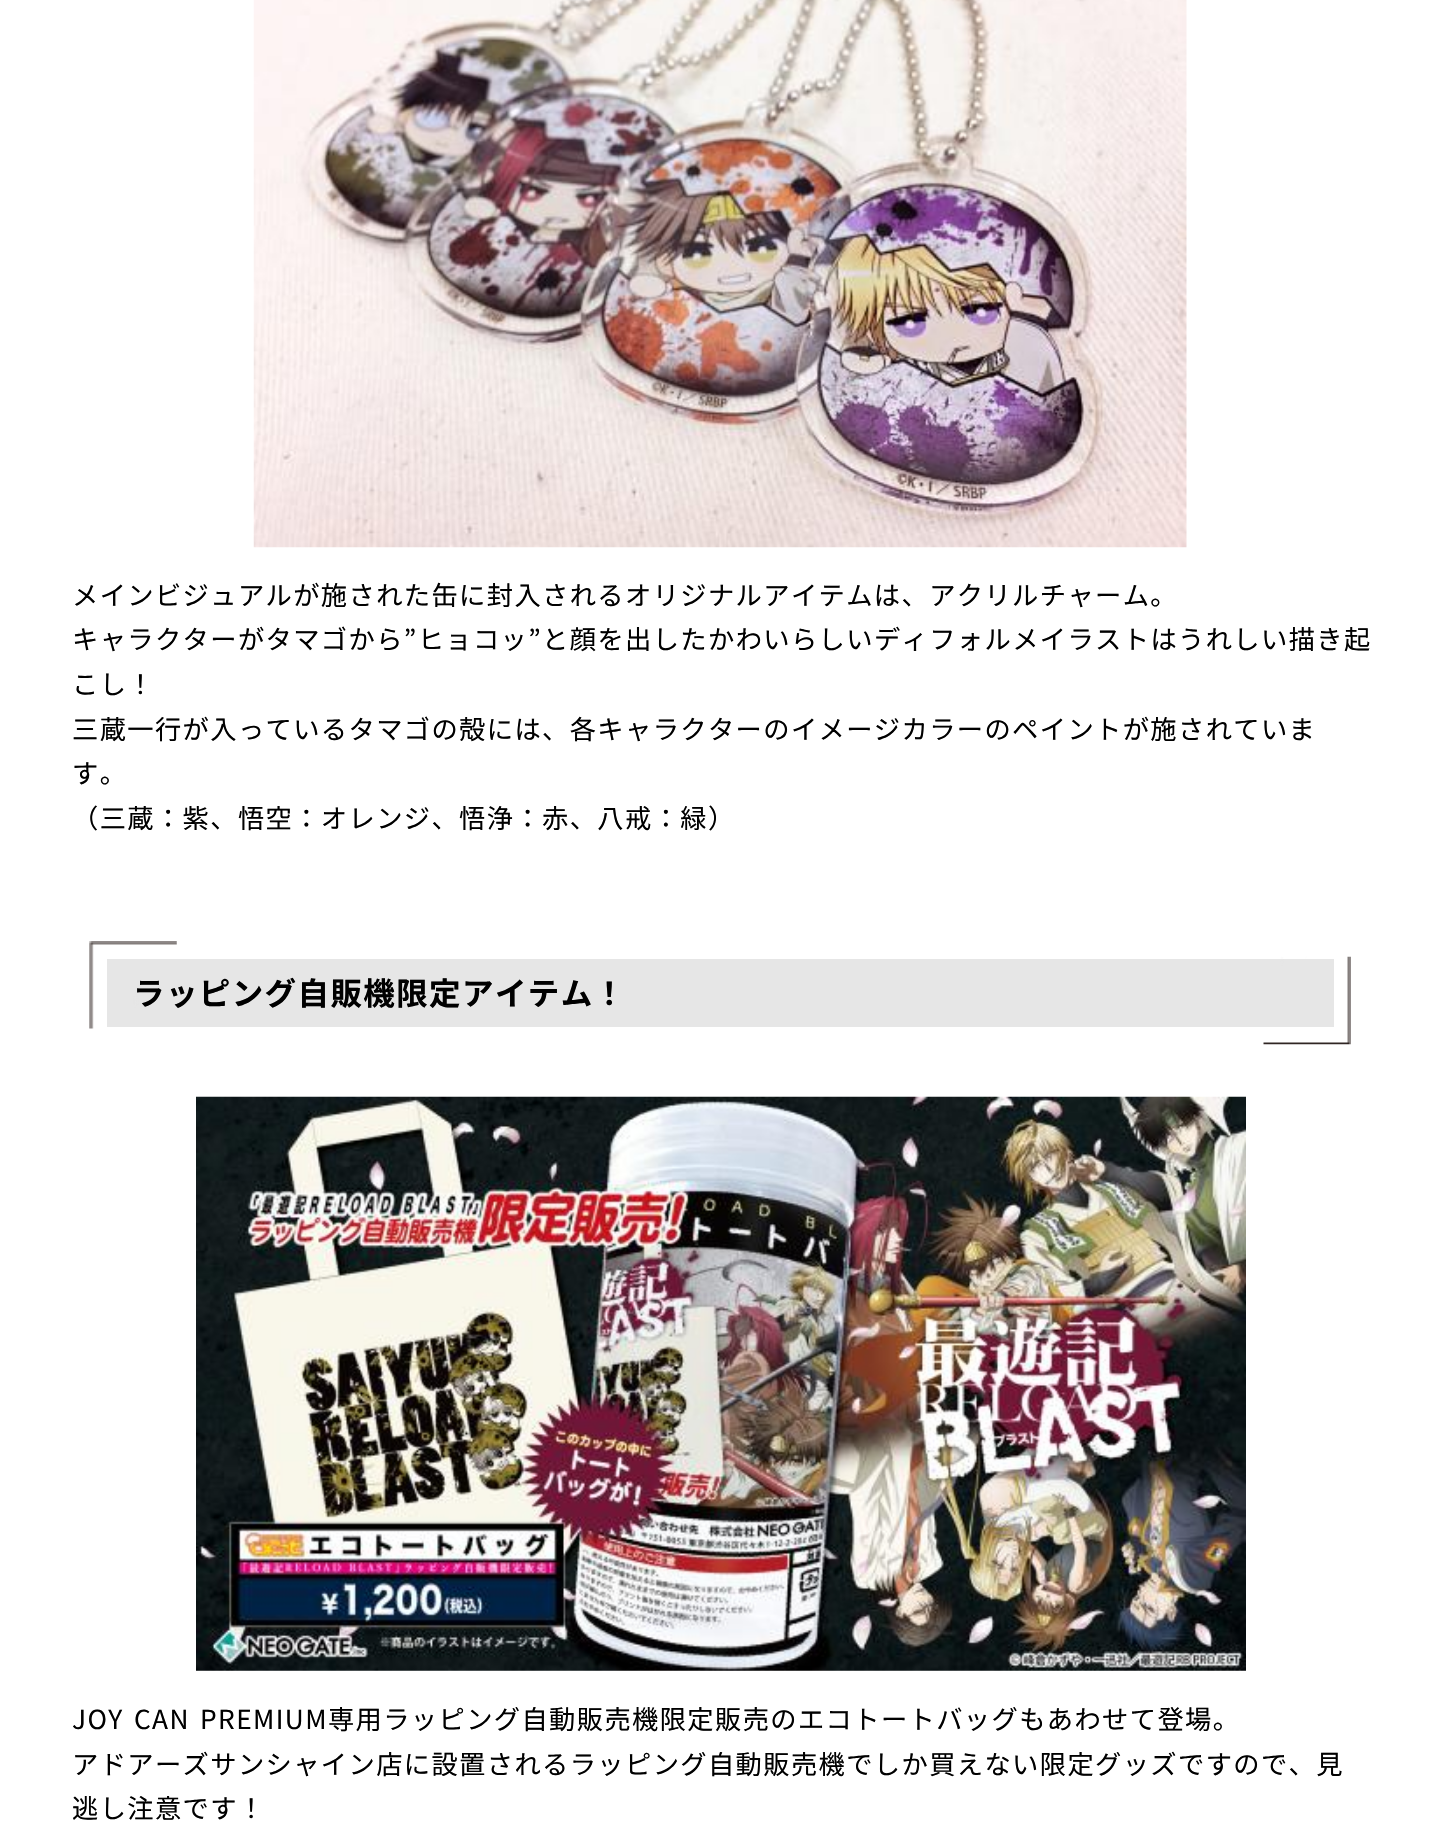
void draw(SkCanvas* canvas) {
	SkPaint fill;
	fill.setAntiAlias(true);
	auto makeFont = [&](const char* family, int weight, float size, bool italic = false) {
		SkFontStyle style(weight, SkFontStyle::kNormal_Width,
			italic ? SkFontStyle::kItalic_Slant : SkFontStyle::kUpright_Slant);
		SkFont result(fontMgr->matchFamilyStyle(family, style), size);
		result.setSubpixel(true);
		return result;
	};
	auto spacedText = [&](const char* s, float x, float y, const SkFont& font, const SkPaint& ink, float letter, float word) {
		std::vector<SkGlyphID> glyphs(font.countText(s, strlen(s), SkTextEncoding::kUTF8));
		std::vector<float> xs(glyphs.size());
		font.textToGlyphs(s, strlen(s), SkTextEncoding::kUTF8, glyphs);
		font.getXPos(glyphs, xs, x);
		float extra = 0;
		for (size_t i = 0; i < glyphs.size(); i++) {
			xs[i] += extra;
			extra += letter + word * (glyphs[i] == font.unicharToGlyph(' '));
		}
		canvas->drawTextBlob(SkTextBlob::MakeFromPosHGlyphs(glyphs, xs, y, font), 0, 0, ink);
	};
	auto box = [&](float l, float t, float r, float b) {
		canvas->drawRect(SkRect::MakeLTRB(l, t, r, b), fill);
	};
	auto picture = [&](const char* path, float l, float t, float r, float b) {
		auto image = SkImages::DeferredFromEncodedData(SkData::MakeFromFileName(path));
		canvas->drawImageRect(image, SkRect::MakeLTRB(l, t, r, b), SkSamplingOptions());
	};
	canvas->clear(0xFFFFFFFF);
	picture("image0.png", 253, 0, 1187, 548);
	fill.setColor(0xFFE6E6E6);
	box(107, 959, 1334, 1027);
	picture("image2.png", 1263, 956, 1351, 1045);
	picture("image3.png", 196, 1096, 1246, 1671);
	auto font1 = makeFont("Noto Sans JP", 400, 26.25f);
	fill.setColor(0xFF000000);
	spacedText("メインビジュアルが施された缶に封入されるオリジナルアイテムは、アクリルチャーム。", 72, 605, font1, fill, 1.4f, 0);
	spacedText("キャラクターがタマゴから”ヒョコッ”と顔を出したかわいらしいディフォルメイラストはうれしい描き起", 72, 649, font1, fill, 1.4f, 0);
	spacedText("こし！", 72, 694, font1, fill, 1.4f, 0);
	spacedText("三蔵一行が入っているタマゴの殻には、各キャラクターのイメージカラーのペイントが施されていま", 72, 739, font1, fill, 1.4f, 0);
	spacedText("す。", 72, 783, font1, fill, 1.4f, 0);
	spacedText("（三蔵：紫、悟空：オレンジ、悟浄：赤、八戒：緑）", 72, 828, font1, fill, 1.4f, 0);
	auto font2 = makeFont("Noto Sans JP", 700, 31.5f);
	spacedText("ラッピング自販機限定アイテム！", 133, 1005, font2, fill, 1.4f, 0);
	picture("image1.png", 89, 941, 177, 1029);
	spacedText("JOY CAN PREMIUM専用ラッピング自動販売機限定販売のエコトートバッグもあわせて登場。", 72, 1729, font1, fill, 1.4f, 3);
	spacedText("アドアーズサンシャイン店に設置されるラッピング自動販売機でしか買えない限定グッズですので、見", 72, 1774, font1, fill, 1.4f, 0);
	spacedText("逃し注意です！", 72, 1818, font1, fill, 1.4f, 0);
}
